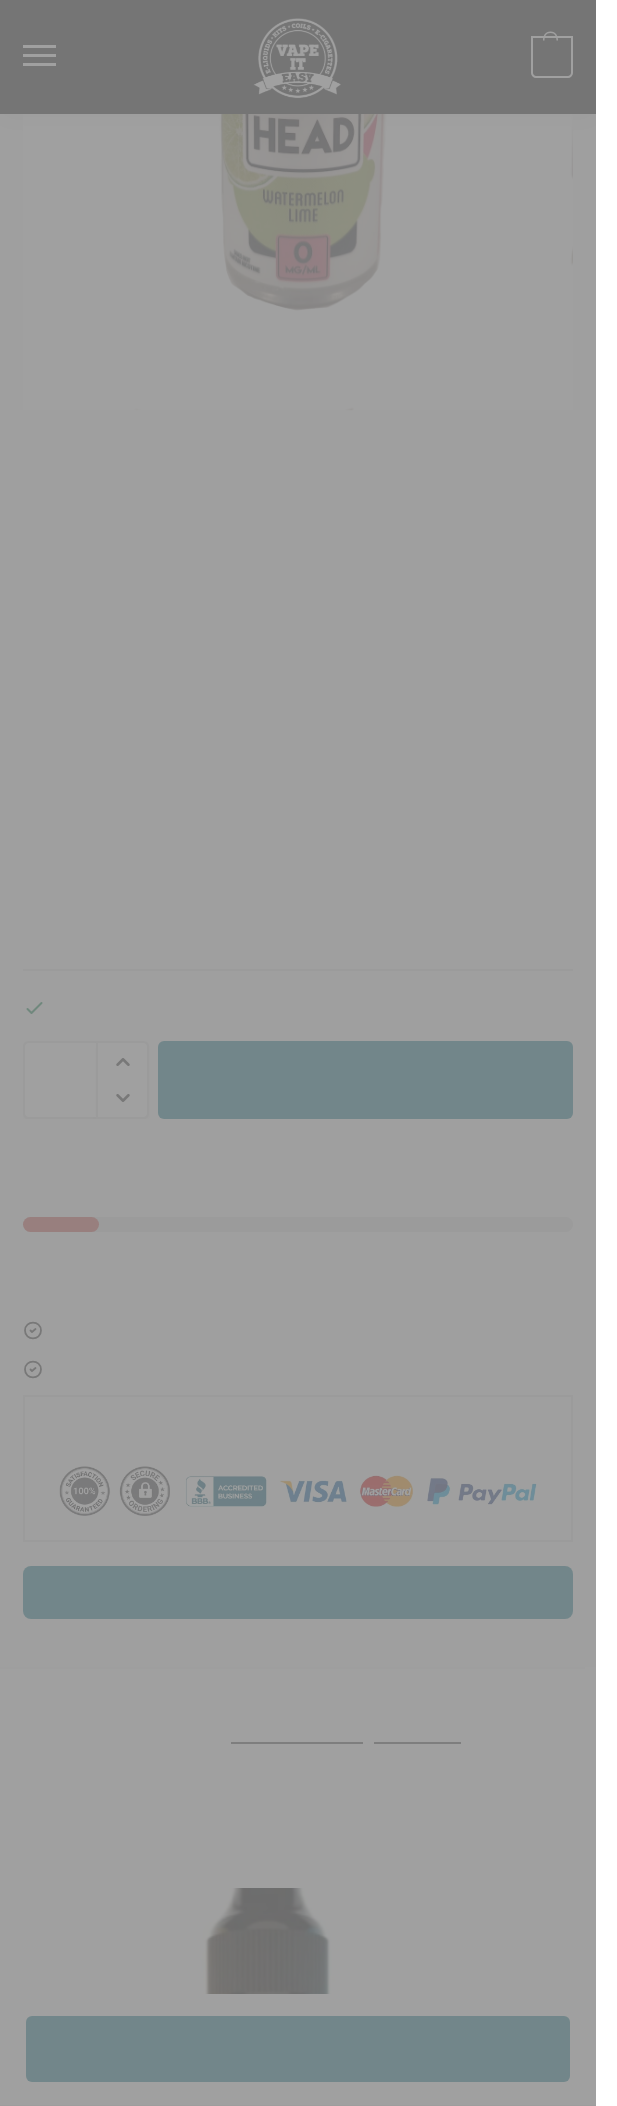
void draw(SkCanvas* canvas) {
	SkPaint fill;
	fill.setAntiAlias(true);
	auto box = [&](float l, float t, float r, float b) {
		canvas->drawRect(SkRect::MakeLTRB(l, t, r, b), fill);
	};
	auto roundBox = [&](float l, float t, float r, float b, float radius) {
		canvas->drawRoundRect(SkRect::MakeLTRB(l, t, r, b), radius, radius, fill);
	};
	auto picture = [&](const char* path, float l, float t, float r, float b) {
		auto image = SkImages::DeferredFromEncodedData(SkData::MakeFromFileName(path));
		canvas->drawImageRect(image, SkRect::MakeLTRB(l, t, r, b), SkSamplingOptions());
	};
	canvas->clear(0xFFF8F8F8);
	fill.setColor(0xFF272627);
	box(0, 0, 596, 114);
	picture("image1.png", 23, 114, 573, 411);
	canvas->save();
	canvas->clipPath(SkPathBuilder(SkPathFillType::kEvenOdd).moveTo(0, 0).lineTo(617, 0).lineTo(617, 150).lineTo(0, 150).close().moveTo(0, 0).lineTo(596, 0).lineTo(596, 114).lineTo(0, 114).close().detach(), true);
	fill.setColor(0x14000000);
	fill.setMaskFilter(SkMaskFilter::MakeBlur(kNormal_SkBlurStyle, 11));
	canvas->drawRect(SkRect::MakeLTRB(0, 2, 596, 116), fill);
	fill.setMaskFilter(nullptr);
	canvas->restore();
	fill.setColor(0xFFFFFFFF);
	box(23, 45, 56, 48);
	box(23, 54, 56, 57);
	box(23, 63, 56, 66);
	picture("image0.png", 253, 18, 341, 99);
	fill.setStyle(SkPaint::kStroke_Style);
	fill.setStrokeWidth(2);
	canvas->drawPath(SkPathBuilder().moveTo(532, 37).lineTo(572, 37).lineTo(572, 73).cubicTo(572, 75, 570, 77, 568, 77).lineTo(536, 77).cubicTo(534, 77, 532, 75, 532, 73).close().detach(), fill);
	fill.setStyle(SkPaint::kFill_Style);
	canvas->drawPath(SkPathBuilder(SkPathFillType::kEvenOdd).moveTo(550.5f, 31.5f).cubicTo(556, 31.5f, 558, 36, 558, 40.5f).lineTo(543, 40.5f).cubicTo(543, 36, 545, 31.5f, 550.5f, 31.5f).close().moveTo(550.5f, 33).cubicTo(555, 33, 556.5f, 36.5f, 556.5f, 40.5f).lineTo(544.5f, 40.5f).cubicTo(544.5f, 36.5f, 546, 33, 550.5f, 33).close().detach(), fill);
	fill.setColor(0xFFE2E2E2);
	box(23, 969, 573, 971);
	fill.setStyle(SkPaint::kStroke_Style);
	fill.setStrokeCap(SkPaint::kRound_Cap);
	fill.setStrokeJoin(SkPaint::kRound_Join);
	fill.setColor(0xFF0F834D);
	canvas->drawPath(SkPathBuilder().moveTo(27.5f, 1009).lineTo(31.5f, 1013).lineTo(41.5f, 1003).detach(), fill);
	canvas->save();
	canvas->clipRect(SkRect::MakeLTRB(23, 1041, 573, 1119));
	fill.setStyle(SkPaint::kFill_Style);
	fill.setColor(0x0D000000);
	fill.setMaskFilter(SkMaskFilter::MakeBlur(kNormal_SkBlurStyle, 1.5f));
	canvas->drawRoundRect(SkRect::MakeLTRB(23, 1043, 98, 1121), 6, 6, fill);
	fill.setMaskFilter(nullptr);
	canvas->restore();
	fill.setColor(0xFFFFFFFF);
	canvas->drawPath(SkPathBuilder().moveTo(29, 1042).lineTo(97, 1042).lineTo(97, 1118).lineTo(29, 1118).cubicTo(26, 1118, 24, 1116, 24, 1113).lineTo(24, 1047).cubicTo(24, 1044, 26, 1042, 29, 1042).close().detach(), fill);
	fill.setStyle(SkPaint::kStroke_Style);
	fill.setStrokeCap(SkPaint::kButt_Cap);
	fill.setStrokeJoin(SkPaint::kMiter_Join);
	fill.setColor(0xFFE2E2E2);
	canvas->drawPath(SkPathBuilder().moveTo(29, 1042).lineTo(97, 1042).lineTo(97, 1118).lineTo(29, 1118).cubicTo(26, 1118, 24, 1116, 24, 1113).lineTo(24, 1047).cubicTo(24, 1044, 26, 1042, 29, 1042).close().detach(), fill);
	canvas->save();
	canvas->clipRect(SkRect::MakeLTRB(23, 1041, 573, 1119));
	fill.setStyle(SkPaint::kFill_Style);
	fill.setColor(0x0D000000);
	fill.setMaskFilter(SkMaskFilter::MakeBlur(kNormal_SkBlurStyle, 1.5f));
	canvas->drawRoundRect(SkRect::MakeLTRB(96, 1043, 149, 1121), 6, 6, fill);
	fill.setMaskFilter(nullptr);
	canvas->restore();
	fill.setColor(0xFFFFFFFF);
	canvas->drawPath(SkPathBuilder().moveTo(97, 1042).lineTo(143, 1042).cubicTo(146, 1042, 148, 1044, 148, 1047).lineTo(148, 1113).cubicTo(148, 1116, 146, 1118, 143, 1118).lineTo(97, 1118).close().detach(), fill);
	fill.setStyle(SkPaint::kStroke_Style);
	fill.setColor(0xFFE2E2E2);
	canvas->drawPath(SkPathBuilder().moveTo(97, 1042).lineTo(143, 1042).cubicTo(146, 1042, 148, 1044, 148, 1047).lineTo(148, 1113).cubicTo(148, 1116, 146, 1118, 143, 1118).lineTo(97, 1118).close().detach(), fill);
	picture("image2.png", 116, 1058, 130, 1066);
	picture("image3.png", 116, 1094, 130, 1102);
	fill.setStyle(SkPaint::kFill_Style);
	fill.setColor(0xFF197D8F);
	roundBox(158, 1041, 573, 1119, 6);
	fill.setColor(0xFFE2E2E2);
	roundBox(23, 1217, 573, 1232, 7.5f);
	fill.setColor(0xFFD75852);
	roundBox(23, 1217, 99, 1232, 7.5f);
	fill.setStyle(SkPaint::kStroke_Style);
	fill.setStrokeWidth(1.8f);
	fill.setStrokeCap(SkPaint::kRound_Cap);
	fill.setStrokeJoin(SkPaint::kRound_Join);
	fill.setColor(0xFF333333);
	canvas->drawPath(SkPathBuilder().moveTo(30.5f, 1330.5f).lineTo(32, 1332).lineTo(35.5f, 1329).moveTo(41, 1330.5f).cubicTo(41, 1341, 25, 1341, 25, 1330.5f).cubicTo(25, 1320, 41, 1320, 41, 1330.5f).close().moveTo(30.5f, 1369.5f).lineTo(32, 1371).lineTo(35.5f, 1368).moveTo(41, 1369.5f).cubicTo(41, 1380, 25, 1380, 25, 1369.5f).cubicTo(25, 1359, 41, 1359, 41, 1369.5f).close().detach(), fill);
	fill.setStrokeWidth(2);
	fill.setStrokeCap(SkPaint::kButt_Cap);
	fill.setStrokeJoin(SkPaint::kMiter_Join);
	fill.setColor(0xFFE2E2E2);
	canvas->drawRect(SkRect::MakeLTRB(24, 1396, 572, 1541), fill);
	picture("image4.png", 59, 1466, 537, 1516);
	fill.setStyle(SkPaint::kFill_Style);
	fill.setColor(0xFF197D8F);
	roundBox(23, 1566, 573, 1619, 8);
	fill.setColor(0xFFEEEEEE);
	box(0, 2105, 596, 2106);
	fill.setColor(0xFFFFFFFF);
	box(0, 1667, 596, 2105);
	fill.setColor(0xFF197D8F);
	roundBox(26, 2016, 570, 2082, 6);
	fill.setColor(0xFFF2F2F2);
	box(0, 1667, 585, 1669);
	fill.setColor(0xFF555555);
	box(231, 1742, 363, 1744);
	box(374, 1742, 461, 1744);
	picture("image5.png", 176, 1888, 356, 1994);
	fill.setColor(0xFFFFFFFF);
	box(596, 0, 617, 2106);
	fill.setColor(0xCC888888);
	box(0, 0, 596, 2106);
}
